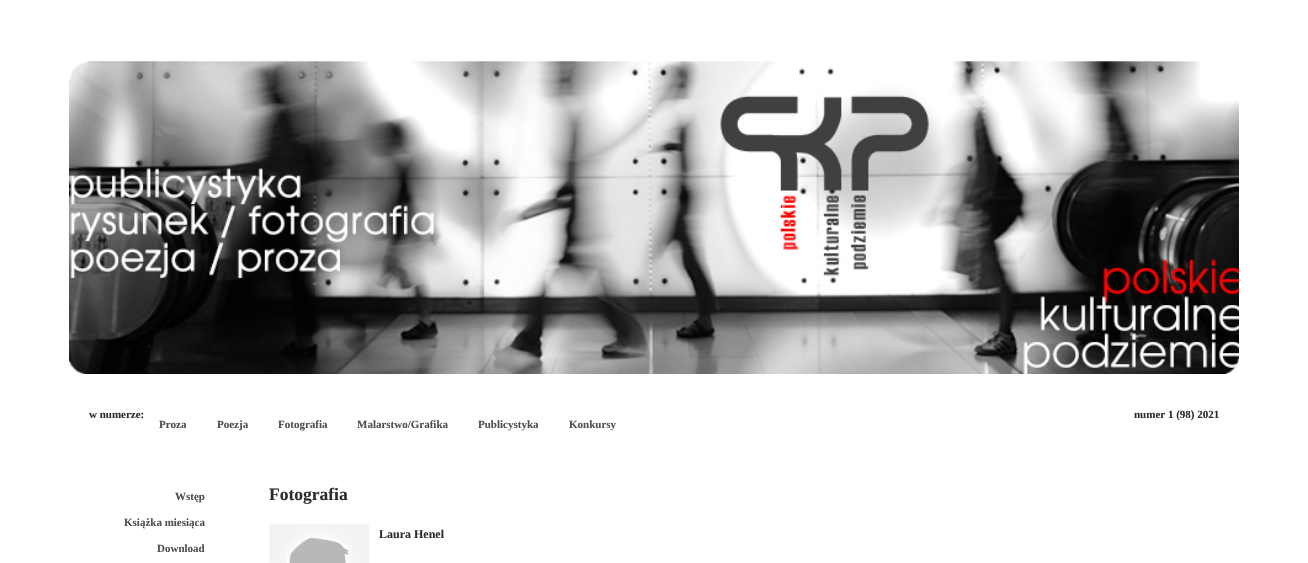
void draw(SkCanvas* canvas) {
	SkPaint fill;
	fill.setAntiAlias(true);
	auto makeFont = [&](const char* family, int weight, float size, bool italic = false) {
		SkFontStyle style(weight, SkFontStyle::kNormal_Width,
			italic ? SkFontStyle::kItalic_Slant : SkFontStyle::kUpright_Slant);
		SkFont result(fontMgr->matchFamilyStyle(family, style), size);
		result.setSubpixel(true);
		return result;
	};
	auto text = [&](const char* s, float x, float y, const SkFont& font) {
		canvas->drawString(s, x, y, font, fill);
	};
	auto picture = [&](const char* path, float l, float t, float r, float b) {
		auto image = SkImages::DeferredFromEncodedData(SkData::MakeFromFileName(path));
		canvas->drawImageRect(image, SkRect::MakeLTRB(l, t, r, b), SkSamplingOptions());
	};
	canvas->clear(0xFFFFFFFF);
	picture("image0.png", 69, 61, 1239, 374);
	picture("image1.png", 269, 524, 369, 563);
	auto font1 = makeFont("Liberation Serif", 700, 11);
	fill.setColor(0xFF2C2C2C);
	text("w numerze:", 89, 418, font1);
	fill.setColor(0xFF4F4F4F);
	text("Proza", 159, 428, font1);
	text("Poezja", 217, 428, font1);
	text("Fotografia", 278, 428, font1);
	text("Malarstwo/Grafika", 357, 428, font1);
	text("Publicystyka", 478, 428, font1);
	text("Konkursy", 569, 428, font1);
	fill.setColor(0xFF2C2C2C);
	text("numer 1 (98) 2021", 1134, 418, font1);
	fill.setColor(0xFF4F4F4F);
	text("Wstęp", 175, 500, font1);
	text("Książka miesiąca", 124, 526, font1);
	text("Download", 157, 552, font1);
	auto font2 = makeFont("Liberation Serif", 700, 17.5f);
	fill.setColor(0xFF2C2C2C);
	text("Fotografia", 269, 500, font2);
	auto font3 = makeFont("Liberation Serif", 700, 12);
	text("Laura Henel", 379, 538, font3);
}
